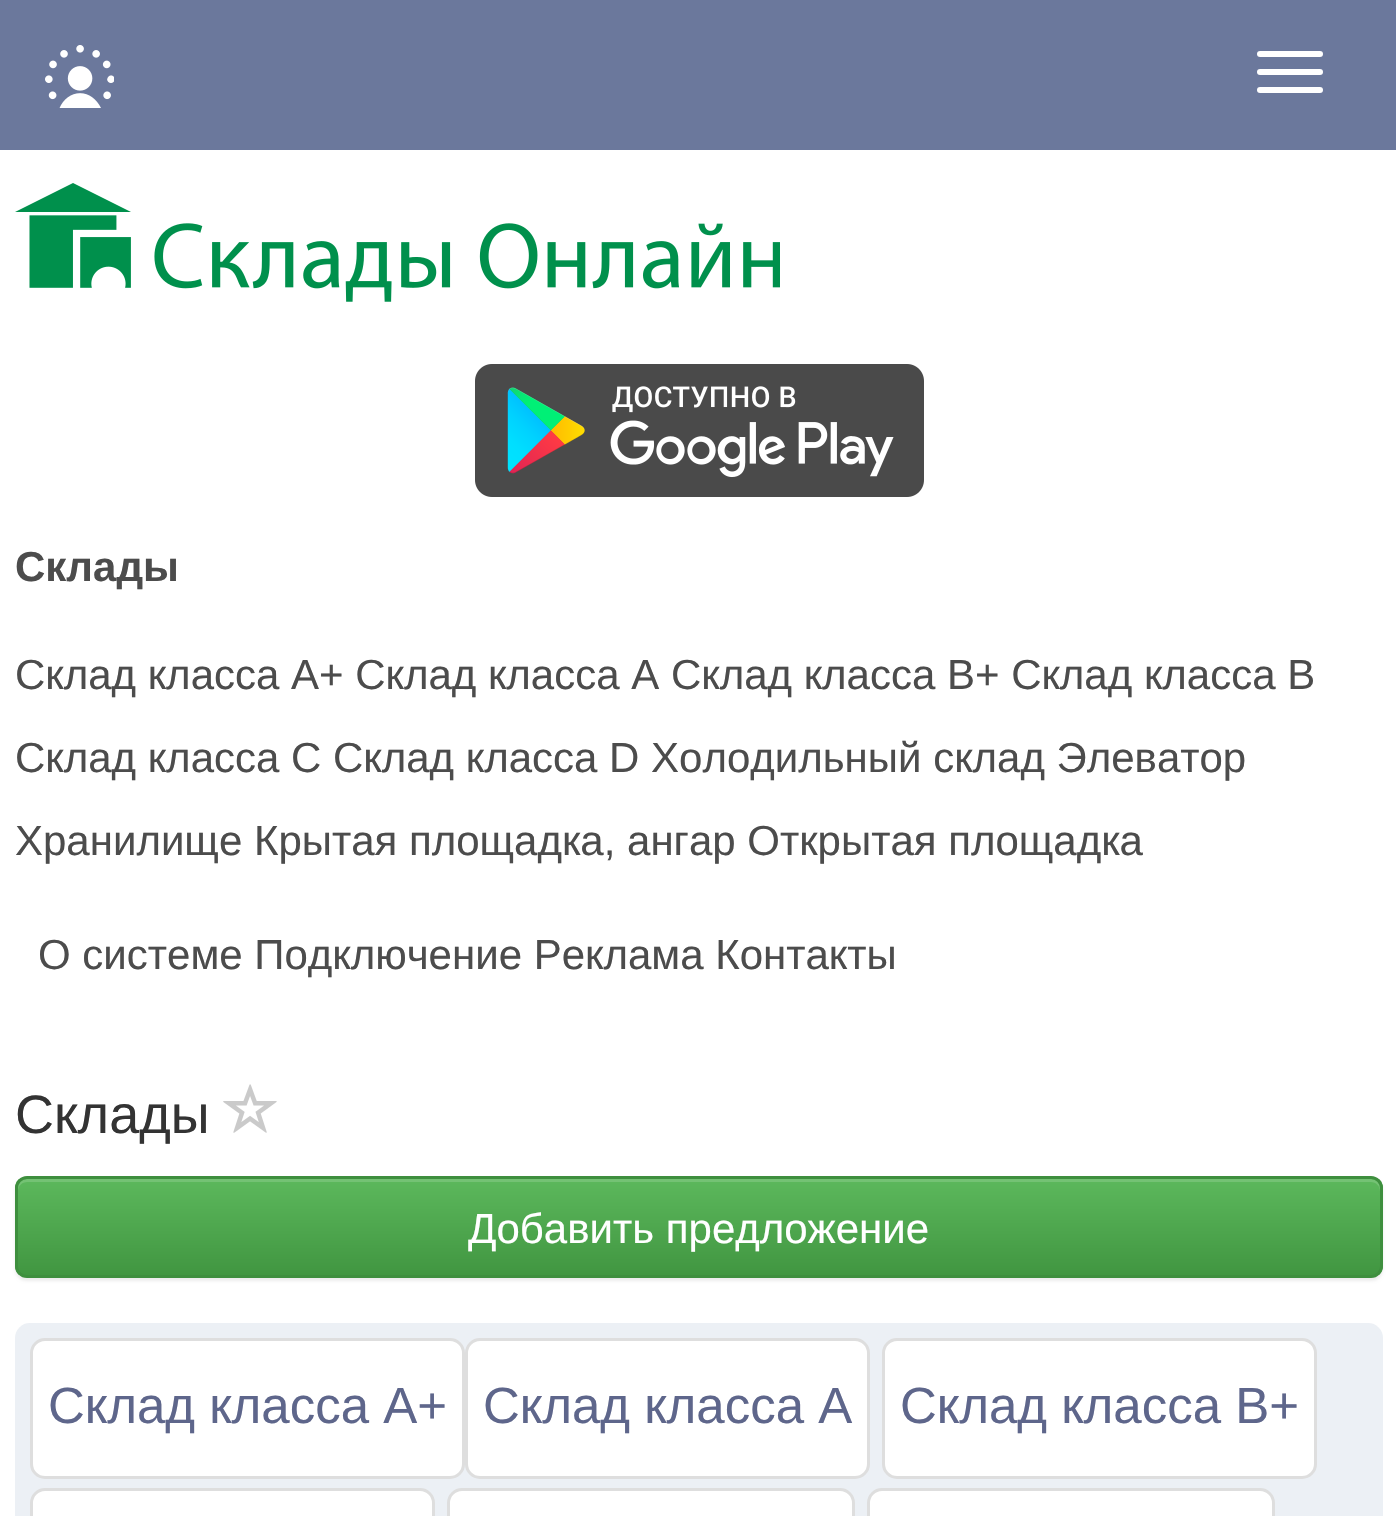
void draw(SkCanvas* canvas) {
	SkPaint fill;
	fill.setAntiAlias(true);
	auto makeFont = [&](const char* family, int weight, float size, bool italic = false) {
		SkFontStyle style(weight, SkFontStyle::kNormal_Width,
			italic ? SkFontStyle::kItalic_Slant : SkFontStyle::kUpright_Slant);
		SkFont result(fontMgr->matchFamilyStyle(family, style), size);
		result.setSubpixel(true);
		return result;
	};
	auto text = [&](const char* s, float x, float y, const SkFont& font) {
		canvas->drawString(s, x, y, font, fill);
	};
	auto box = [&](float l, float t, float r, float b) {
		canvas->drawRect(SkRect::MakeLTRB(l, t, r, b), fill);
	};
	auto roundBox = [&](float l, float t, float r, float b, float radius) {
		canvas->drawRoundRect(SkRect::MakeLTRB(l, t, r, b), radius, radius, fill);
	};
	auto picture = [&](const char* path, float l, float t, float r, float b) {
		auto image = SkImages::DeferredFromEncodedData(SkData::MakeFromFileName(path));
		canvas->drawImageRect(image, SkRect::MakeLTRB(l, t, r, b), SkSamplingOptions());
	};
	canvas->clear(0xFFFFFFFF);
	fill.setColor(0xFF6B789C);
	box(0, 0, 1396, 150);
	picture("image0.png", 45, 45, 114, 108);
	fill.setColor(0xFFFFFFFF);
	roundBox(1257, 51, 1323, 57, 3);
	roundBox(1257, 69, 1323, 75, 3);
	roundBox(1257, 87, 1323, 93, 3);
	picture("image1.png", 15, 183, 780, 302);
	picture("image2.png", 475, 364, 924, 497);
	picture("image3.png", 223, 1084, 277, 1133);
	fill.setColor(0x12000000);
	fill.setMaskFilter(SkMaskFilter::MakeBlur(kNormal_SkBlurStyle, 1.5f));
	canvas->drawRoundRect(SkRect::MakeLTRB(15, 1179, 1383, 1281), 12, 12, fill);
	fill.setMaskFilter(nullptr);
	canvas->save();
	canvas->clipPath(SkPathBuilder().moveTo(27, 1176).lineTo(1371, 1176).cubicTo(1377.5f, 1176, 1383, 1181.5f, 1383, 1188).lineTo(1383, 1266).cubicTo(1383, 1272.5f, 1377.5f, 1278, 1371, 1278).lineTo(27, 1278).cubicTo(20.5f, 1278, 15, 1272.5f, 15, 1266).lineTo(15, 1188).cubicTo(15, 1181.5f, 20.5f, 1176, 27, 1176).close().detach(), true);
	{
		const SkColor colors[] = {0xFF5CB85C, 0xFF419641};
		const float stops[] = {0, 1};
		const SkPoint ends[] = {{699, 1179}, {699, 1275}};
		fill.setShader(SkGradientShader::MakeLinear(ends, colors, stops, 2, SkTileMode::kClamp));
		fill.setAlpha(255);
	}
	box(15, 1179, 1383, 1275);
	canvas->restore();
	fill.setShader(nullptr);
	fill.setColor(0x26FFFFFF);
	canvas->drawPath(SkPathBuilder().moveTo(27, 1182).lineTo(1371, 1182).cubicTo(1376, 1182, 1380, 1186, 1380, 1191).lineTo(1380, 1188).cubicTo(1380, 1183, 1376, 1179, 1371, 1179).lineTo(27, 1179).cubicTo(22, 1179, 18, 1183, 18, 1188).lineTo(18, 1191).cubicTo(18, 1186, 22, 1182, 27, 1182).close().detach(), fill);
	fill.setStyle(SkPaint::kStroke_Style);
	fill.setStrokeWidth(3);
	fill.setColor(0xFF3E8F3E);
	canvas->drawRoundRect(SkRect::MakeLTRB(16.5f, 1177.5f, 1381.5f, 1276.5f), 10.5f, 10.5f, fill);
	fill.setStyle(SkPaint::kFill_Style);
	fill.setColor(0xFFECF0F5);
	roundBox(15, 1323, 1383, 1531, 15);
	fill.setColor(0xFFFFFFFF);
	canvas->drawRoundRect(SkRect::MakeLTRB(31.5f, 1339.5f, 463.5f, 1477.5f), 13.5f, 13.5f, fill);
	fill.setStyle(SkPaint::kStroke_Style);
	fill.setColor(0xFFDEDEDE);
	canvas->drawRoundRect(SkRect::MakeLTRB(31.5f, 1339.5f, 463.5f, 1477.5f), 13.5f, 13.5f, fill);
	fill.setStyle(SkPaint::kFill_Style);
	fill.setColor(0xFFFFFFFF);
	canvas->drawRoundRect(SkRect::MakeLTRB(466.5f, 1339.5f, 868.5f, 1477.5f), 13.5f, 13.5f, fill);
	fill.setStyle(SkPaint::kStroke_Style);
	fill.setColor(0xFFDEDEDE);
	canvas->drawRoundRect(SkRect::MakeLTRB(466.5f, 1339.5f, 868.5f, 1477.5f), 13.5f, 13.5f, fill);
	fill.setStyle(SkPaint::kFill_Style);
	fill.setColor(0xFFFFFFFF);
	canvas->drawRoundRect(SkRect::MakeLTRB(883.5f, 1339.5f, 1315.5f, 1477.5f), 13.5f, 13.5f, fill);
	fill.setStyle(SkPaint::kStroke_Style);
	fill.setColor(0xFFDEDEDE);
	canvas->drawRoundRect(SkRect::MakeLTRB(883.5f, 1339.5f, 1315.5f, 1477.5f), 13.5f, 13.5f, fill);
	fill.setStyle(SkPaint::kFill_Style);
	fill.setColor(0xFFFFFFFF);
	canvas->drawRoundRect(SkRect::MakeLTRB(31.5f, 1489.5f, 433.5f, 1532.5f), 13.5f, 13.5f, fill);
	fill.setStyle(SkPaint::kStroke_Style);
	fill.setColor(0xFFDEDEDE);
	canvas->drawRoundRect(SkRect::MakeLTRB(31.5f, 1489.5f, 433.5f, 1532.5f), 13.5f, 13.5f, fill);
	fill.setStyle(SkPaint::kFill_Style);
	fill.setColor(0xFFFFFFFF);
	canvas->drawRoundRect(SkRect::MakeLTRB(448.5f, 1489.5f, 853.5f, 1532.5f), 13.5f, 13.5f, fill);
	fill.setStyle(SkPaint::kStroke_Style);
	fill.setColor(0xFFDEDEDE);
	canvas->drawRoundRect(SkRect::MakeLTRB(448.5f, 1489.5f, 853.5f, 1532.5f), 13.5f, 13.5f, fill);
	fill.setStyle(SkPaint::kFill_Style);
	fill.setColor(0xFFFFFFFF);
	canvas->drawRoundRect(SkRect::MakeLTRB(868.5f, 1489.5f, 1273.5f, 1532.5f), 13.5f, 13.5f, fill);
	fill.setStyle(SkPaint::kStroke_Style);
	fill.setColor(0xFFDEDEDE);
	canvas->drawRoundRect(SkRect::MakeLTRB(868.5f, 1489.5f, 1273.5f, 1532.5f), 13.5f, 13.5f, fill);
	auto font1 = makeFont("Liberation Sans", 700, 42);
	fill.setStyle(SkPaint::kFill_Style);
	fill.setColor(0xFF4C4C4C);
	text("Склады", 15, 581, font1);
	auto font2 = makeFont("Liberation Sans", 400, 42);
	text("Склад класса А+ Склад класса А Склад класса B+ Склад класса B", 15, 689, font2);
	text("Склад класса C Склад класса D Холодильный склад Элеватор", 15, 772, font2);
	text("Хранилище Крытая площадка, ангар Открытая площадка", 15, 855, font2);
	text("О системе Подключение Реклама Контакты", 38, 969, font2);
	auto font3 = makeFont("Liberation Sans", 400, 54);
	fill.setColor(0xFF333333);
	text("Склады", 15, 1133, font3);
	fill.setColor(0xFFFFFFFF);
	text("Добавить предложение", 468, 1243, font2);
	auto font4 = makeFont("Liberation Sans", 400, 51);
	fill.setColor(0xFF5E668B);
	text("Склад класса А+", 48, 1423, font4);
	text("Склад класса А", 483, 1423, font4);
	text("Склад класса B+", 900, 1423, font4);
}
